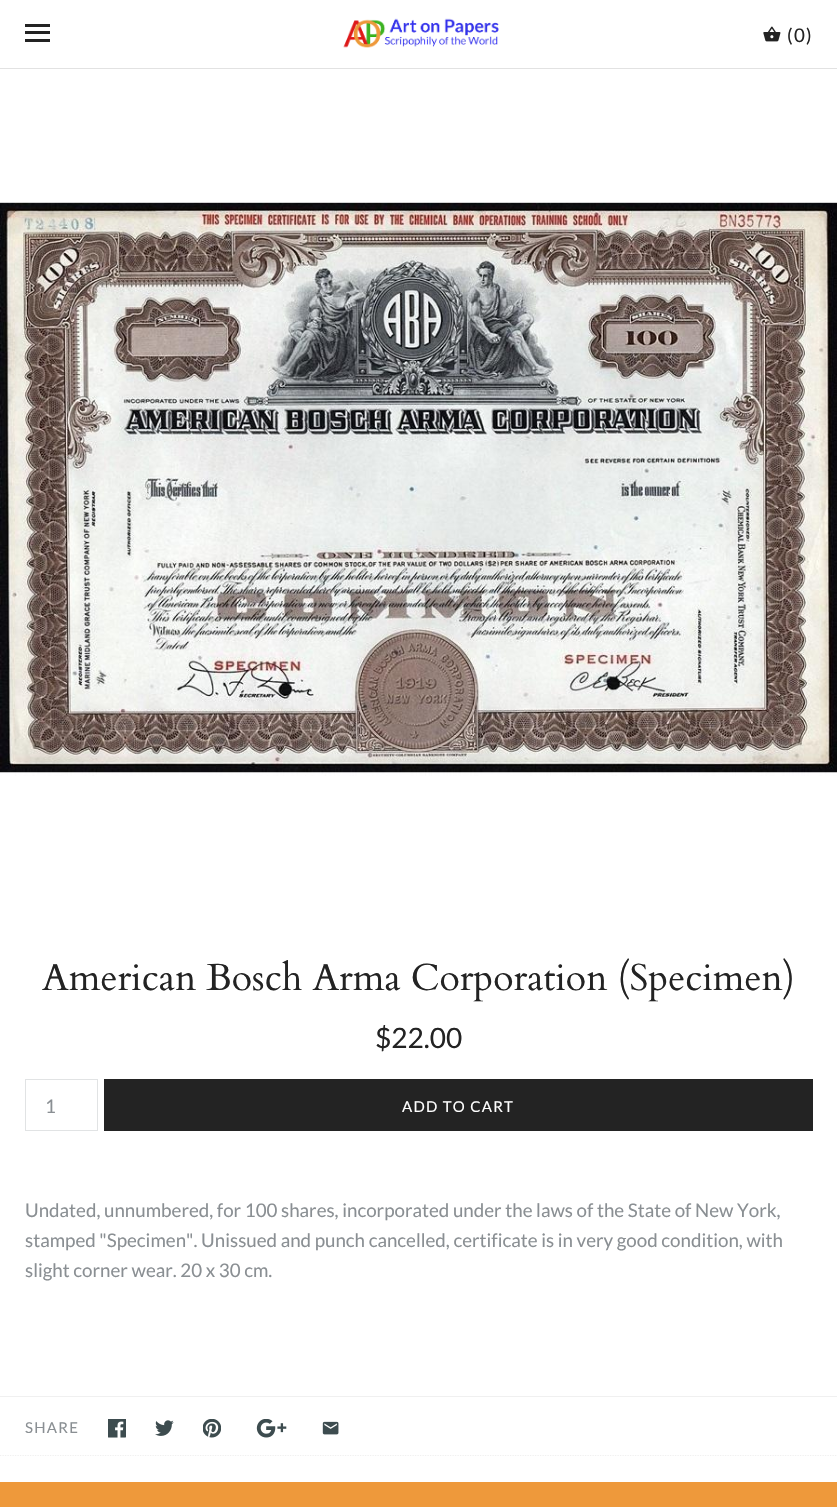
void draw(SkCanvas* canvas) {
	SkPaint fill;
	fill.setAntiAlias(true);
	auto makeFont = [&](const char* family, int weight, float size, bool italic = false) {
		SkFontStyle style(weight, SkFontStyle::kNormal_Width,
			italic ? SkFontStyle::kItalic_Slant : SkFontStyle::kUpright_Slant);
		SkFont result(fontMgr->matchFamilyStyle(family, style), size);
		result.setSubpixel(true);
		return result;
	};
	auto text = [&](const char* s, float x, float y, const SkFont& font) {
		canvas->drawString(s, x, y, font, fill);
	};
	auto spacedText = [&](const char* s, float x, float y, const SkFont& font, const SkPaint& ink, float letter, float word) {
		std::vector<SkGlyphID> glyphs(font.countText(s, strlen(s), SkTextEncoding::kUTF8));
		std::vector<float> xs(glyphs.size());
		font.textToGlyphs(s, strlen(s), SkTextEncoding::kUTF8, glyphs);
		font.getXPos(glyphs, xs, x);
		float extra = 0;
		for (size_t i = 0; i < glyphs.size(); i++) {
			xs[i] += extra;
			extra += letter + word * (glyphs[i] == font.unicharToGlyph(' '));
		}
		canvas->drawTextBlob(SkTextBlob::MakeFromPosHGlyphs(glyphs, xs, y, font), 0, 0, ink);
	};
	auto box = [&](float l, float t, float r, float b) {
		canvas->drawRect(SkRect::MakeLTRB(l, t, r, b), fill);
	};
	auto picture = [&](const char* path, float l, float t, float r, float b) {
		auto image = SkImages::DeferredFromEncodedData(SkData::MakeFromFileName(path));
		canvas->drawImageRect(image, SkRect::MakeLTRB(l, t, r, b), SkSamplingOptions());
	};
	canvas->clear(0xFFFFFFFF);
	fill.setColor(0xFFE2E2E2);
	box(0, 68, 837, 69);
	fill.setColor(0xFF232323);
	box(25, 24, 50, 27);
	box(25, 31, 50, 34);
	box(25, 39, 50, 42);
	picture("image0.png", 343, 18, 499, 48);
	picture("image1.png", 763, 26, 781, 42);
	picture("image2.png", 0, 202, 837, 776);
	fill.setStyle(SkPaint::kStroke_Style);
	fill.setStrokeWidth(1);
	fill.setColor(0xFFE1E3E4);
	canvas->drawRect(SkRect::MakeLTRB(25.5f, 1079.5f, 97.5f, 1130.5f), fill);
	fill.setStyle(SkPaint::kFill_Style);
	fill.setColor(0xFF232323);
	box(104, 1079, 813, 1131);
	fill.setColor(0xFFF0F0F0);
	box(0, 1396, 837, 1397);
	fill.setStyle(SkPaint::kStroke_Style);
	fill.setStrokeWidth(1.2f);
	fill.setPathEffect(SkDashPathEffect::Make({{1.25f, 1.25f}}, 0));
	canvas->drawPath(SkPathBuilder().moveTo(0, 1455.5f).lineTo(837.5f, 1455.5f).detach(), fill);
	fill.setPathEffect(nullptr);
	picture("image3.png", 108, 1419, 126, 1438);
	picture("image4.png", 155, 1420, 174, 1436);
	picture("image5.png", 203, 1419, 221, 1438);
	picture("image6.png", 256, 1419, 287, 1438);
	picture("image7.png", 322, 1421, 339, 1435);
	fill.setStyle(SkPaint::kFill_Style);
	fill.setColor(0xFFEE993B);
	box(0, 1482, 837, 1507);
	auto font1 = makeFont("Lato", 400, 18.75f);
	fill.setColor(0xFF232323);
	spacedText("(0)", 787, 42, font1, fill, 1.25f, 0);
	auto font2 = makeFont("Cardo", 400, 37.5f);
	text("American Bosch Arma Corporation (Specimen)", 42, 990, font2);
	auto font3 = makeFont("Lato", 400, 28);
	text("$22.00", 375, 1048, font3);
	fill.setColor(0xFF8A8F93);
	text("1", 45, 1113, font1);
	auto font4 = makeFont("Lato", 400, 15);
	fill.setColor(0xFFFFFFFF);
	spacedText("ADD TO CART", 402, 1112, font4, fill, 1.25f, 0);
	fill.setColor(0xFF8A8F93);
	text("Undated, unnumbered, for 100 shares, incorporated under the laws of the State of New York,", 25, 1217, font1);
	text("stamped \"Specimen\". Unissued and punch cancelled, certificate is in very good condition, with", 25, 1247, font1);
	text("slight corner wear. 20 x 30 cm.", 25, 1277, font1);
	spacedText("SHARE", 25, 1433, font4, fill, 1.25f, 0);
}
